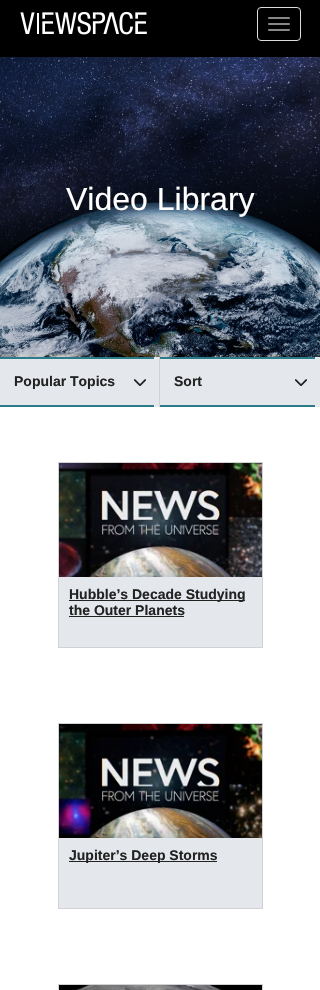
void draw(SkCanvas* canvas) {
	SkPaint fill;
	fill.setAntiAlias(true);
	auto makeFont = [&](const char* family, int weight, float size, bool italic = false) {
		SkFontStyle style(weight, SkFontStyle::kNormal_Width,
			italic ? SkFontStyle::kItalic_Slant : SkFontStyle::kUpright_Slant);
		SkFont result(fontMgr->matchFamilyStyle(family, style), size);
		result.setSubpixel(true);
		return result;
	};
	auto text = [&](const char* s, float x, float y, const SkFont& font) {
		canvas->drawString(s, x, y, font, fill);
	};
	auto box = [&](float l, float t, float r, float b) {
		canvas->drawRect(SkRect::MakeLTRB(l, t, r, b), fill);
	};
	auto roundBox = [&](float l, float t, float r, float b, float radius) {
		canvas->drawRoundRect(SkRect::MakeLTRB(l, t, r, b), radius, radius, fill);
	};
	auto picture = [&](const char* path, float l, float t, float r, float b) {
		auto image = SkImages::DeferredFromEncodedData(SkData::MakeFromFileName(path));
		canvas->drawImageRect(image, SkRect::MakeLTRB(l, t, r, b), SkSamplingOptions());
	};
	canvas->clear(0xFF000000);
	picture("image0.png", 20, 11, 147, 35);
	fill.setStyle(SkPaint::kStroke_Style);
	fill.setStrokeWidth(1);
	fill.setColor(0xFFDDDDDD);
	canvas->drawRoundRect(SkRect::MakeLTRB(257.5f, 7.5f, 300.5f, 40.5f), 3.5f, 3.5f, fill);
	fill.setStyle(SkPaint::kFill_Style);
	fill.setColor(0xFF888888);
	roundBox(268, 17, 290, 19, 1);
	roundBox(268, 23, 290, 25, 1);
	roundBox(268, 29, 290, 31, 1);
	picture("image1.png", 0, 57, 320, 357);
	fill.setColor(0xFFE4E7EB);
	box(0, 357, 320, 407);
	fill.setColor(0xFFD0D2D3);
	box(159, 357, 160, 407);
	fill.setColor(0xFF2B7B88);
	box(0, 357, 154, 359);
	box(0, 405, 154, 407);
	picture("image2.png", 134, 379, 146, 386);
	box(160, 357, 315, 359);
	box(160, 405, 315, 407);
	picture("image2.png", 295, 379, 307, 386);
	fill.setColor(0xFFFFFFFF);
	box(0, 407, 320, 990);
	fill.setStyle(SkPaint::kStroke_Style);
	fill.setColor(0xFFD0D2D3);
	canvas->drawRect(SkRect::MakeLTRB(58.5f, 462.5f, 262.5f, 647.5f), fill);
	picture("image3.png", 59, 463, 262, 577);
	fill.setStyle(SkPaint::kFill_Style);
	fill.setColor(0xFFE4E7EB);
	box(59, 577, 262, 647);
	fill.setColor(0xFF222222);
	box(69, 600, 245, 601);
	box(69, 616, 184, 617);
	fill.setStyle(SkPaint::kStroke_Style);
	fill.setColor(0xFFD0D2D3);
	canvas->drawRect(SkRect::MakeLTRB(58.5f, 723.5f, 262.5f, 908.5f), fill);
	picture("image4.png", 59, 724, 262, 838);
	fill.setStyle(SkPaint::kFill_Style);
	fill.setColor(0xFFE4E7EB);
	box(59, 838, 262, 908);
	fill.setColor(0xFF222222);
	box(69, 861, 217, 862);
	fill.setStyle(SkPaint::kStroke_Style);
	fill.setColor(0xFFD0D2D3);
	canvas->drawRect(SkRect::MakeLTRB(58.5f, 984.5f, 262.5f, 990.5f), fill);
	picture("image5.png", 59, 985, 262, 990);
	auto font1 = makeFont("Liberation Sans", 400, 32);
	fill.setStyle(SkPaint::kFill_Style);
	fill.setColor(0xFFFFFFFF);
	text("Video Library", 66, 210, font1);
	auto font2 = makeFont("Liberation Sans", 700, 14);
	fill.setColor(0xFF222222);
	text("Popular Topics", 14, 386, font2);
	text("Sort", 174, 386, font2);
	text("Hubble’s Decade Studying", 69, 599, font2);
	text("the Outer Planets", 69, 615, font2);
	text("Jupiter’s Deep Storms", 69, 860, font2);
}
